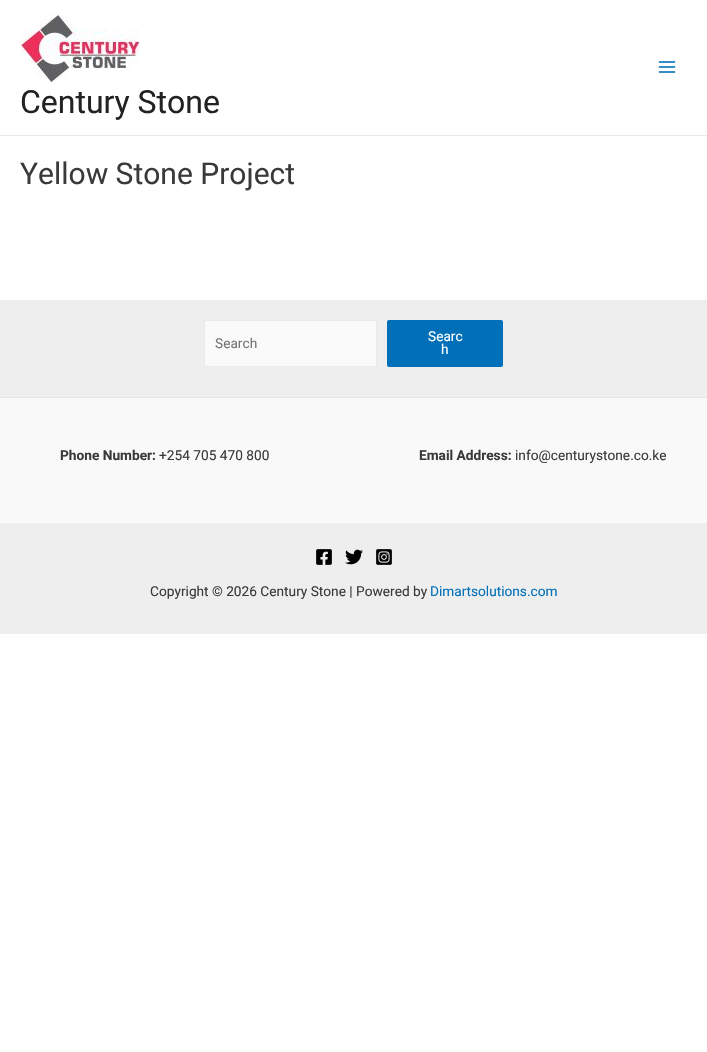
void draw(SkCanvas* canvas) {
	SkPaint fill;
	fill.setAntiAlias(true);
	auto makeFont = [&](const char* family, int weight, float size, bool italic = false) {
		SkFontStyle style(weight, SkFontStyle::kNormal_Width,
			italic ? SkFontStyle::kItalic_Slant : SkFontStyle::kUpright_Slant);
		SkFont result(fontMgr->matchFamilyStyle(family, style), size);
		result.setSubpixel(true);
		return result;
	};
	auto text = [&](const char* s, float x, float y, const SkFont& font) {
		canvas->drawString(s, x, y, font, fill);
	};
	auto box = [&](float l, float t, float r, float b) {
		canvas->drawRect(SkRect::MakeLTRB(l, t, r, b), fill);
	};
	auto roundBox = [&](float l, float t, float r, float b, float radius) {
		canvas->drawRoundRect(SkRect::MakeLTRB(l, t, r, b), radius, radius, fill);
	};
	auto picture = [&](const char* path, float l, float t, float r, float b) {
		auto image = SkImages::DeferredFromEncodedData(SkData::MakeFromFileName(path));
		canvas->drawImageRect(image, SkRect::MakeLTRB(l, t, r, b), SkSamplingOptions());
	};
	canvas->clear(0xFFFFFFFF);
	fill.setColor(0xFFEAEAEA);
	box(0, 135, 707, 136);
	picture("image0.png", 658, 61, 676, 73);
	picture("image1.png", 20, 14, 140, 83);
	fill.setColor(0xFFEEEEEE);
	box(0, 300, 707, 397);
	fill.setColor(0xFFFAFAFA);
	canvas->drawRoundRect(SkRect::MakeLTRB(204.5f, 320.5f, 376.5f, 366.5f), 1.5f, 1.5f, fill);
	fill.setStyle(SkPaint::kStroke_Style);
	fill.setStrokeWidth(1);
	fill.setColor(0xFFEAEAEA);
	canvas->drawRoundRect(SkRect::MakeLTRB(204.5f, 320.5f, 376.5f, 366.5f), 1.5f, 1.5f, fill);
	fill.setStyle(SkPaint::kFill_Style);
	fill.setColor(0xFF0170B9);
	roundBox(387, 320, 503, 367, 2);
	fill.setColor(0xFFF9F9F9);
	box(0, 398, 707, 523);
	fill.setColor(0xFFE6E6E6);
	box(0, 397, 707, 398);
	fill.setColor(0xFFEEEEEE);
	box(0, 523, 707, 634);
	picture("image2.png", 316, 549, 332, 565);
	picture("image3.png", 345, 549, 363, 565);
	picture("image4.png", 376, 549, 392, 565);
	auto font1 = makeFont("Roboto", 400, 32);
	fill.setColor(0xFF222222);
	text("Century Stone", 20, 113, font1);
	auto font2 = makeFont("Roboto", 400, 30);
	fill.setColor(0xFF3A3A3A);
	text("Yellow Stone Project", 20, 184, font2);
	auto font3 = makeFont("Roboto", 400, 13.7f);
	fill.setColor(0xFF757575);
	text("Search", 215, 348, font3);
	fill.setColor(0xFFFFFFFF);
	text("Searc", 428, 341, font3);
	text("h", 441, 354, font3);
	auto font4 = makeFont("Roboto", 700, 13.7f);
	fill.setColor(0xFF3A3A3A);
	text("Phone Number:", 60, 460, font4);
	text("+254 705 470 800", 159, 460, font3);
	text("Email Address:", 419, 460, font4);
	text("info@centurystone.co.ke", 515, 460, font3);
	text("Copyright © 2026 Century Stone | Powered by", 150, 596, font3);
	fill.setColor(0xFF0170B9);
	text("Dimartsolutions.com", 430, 596, font3);
}
